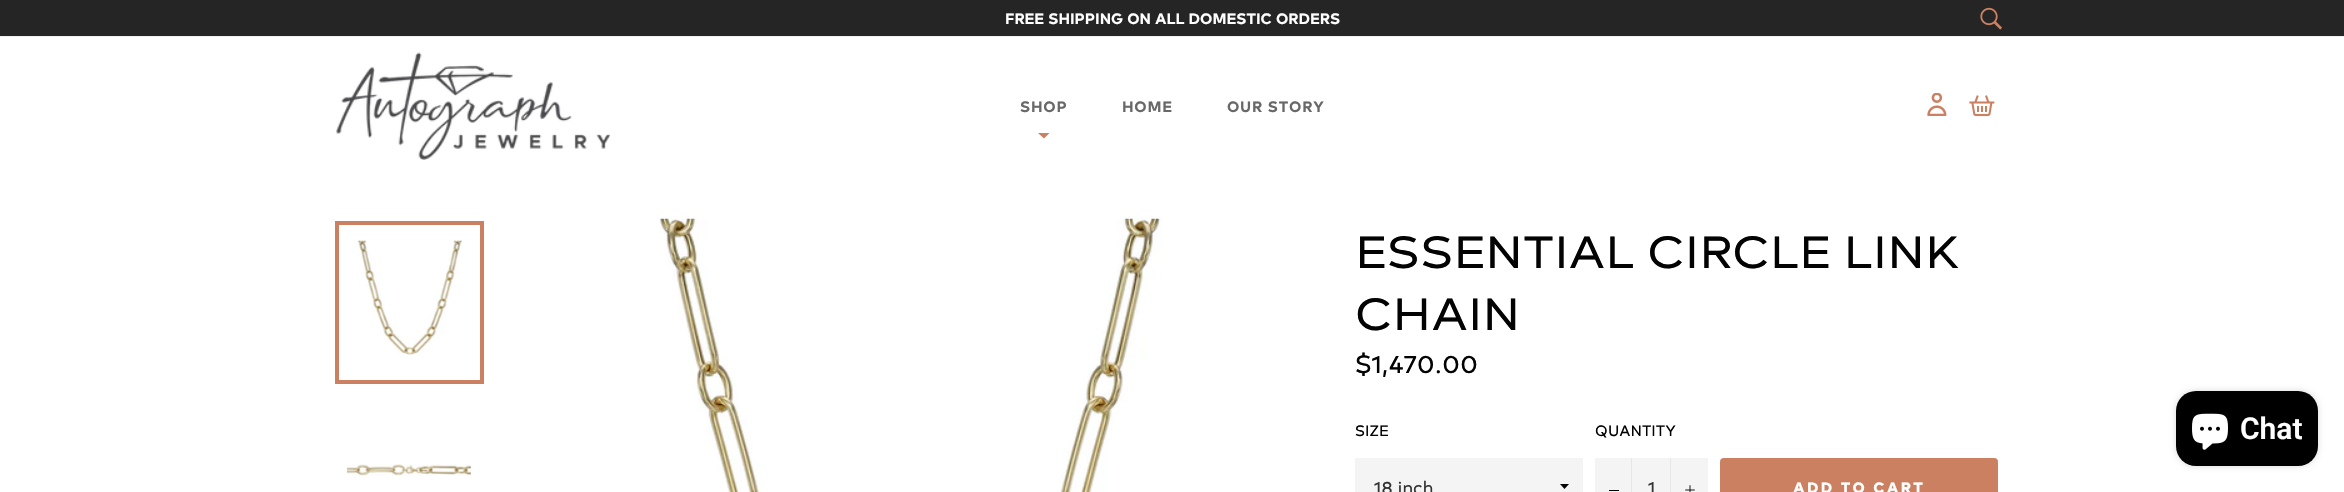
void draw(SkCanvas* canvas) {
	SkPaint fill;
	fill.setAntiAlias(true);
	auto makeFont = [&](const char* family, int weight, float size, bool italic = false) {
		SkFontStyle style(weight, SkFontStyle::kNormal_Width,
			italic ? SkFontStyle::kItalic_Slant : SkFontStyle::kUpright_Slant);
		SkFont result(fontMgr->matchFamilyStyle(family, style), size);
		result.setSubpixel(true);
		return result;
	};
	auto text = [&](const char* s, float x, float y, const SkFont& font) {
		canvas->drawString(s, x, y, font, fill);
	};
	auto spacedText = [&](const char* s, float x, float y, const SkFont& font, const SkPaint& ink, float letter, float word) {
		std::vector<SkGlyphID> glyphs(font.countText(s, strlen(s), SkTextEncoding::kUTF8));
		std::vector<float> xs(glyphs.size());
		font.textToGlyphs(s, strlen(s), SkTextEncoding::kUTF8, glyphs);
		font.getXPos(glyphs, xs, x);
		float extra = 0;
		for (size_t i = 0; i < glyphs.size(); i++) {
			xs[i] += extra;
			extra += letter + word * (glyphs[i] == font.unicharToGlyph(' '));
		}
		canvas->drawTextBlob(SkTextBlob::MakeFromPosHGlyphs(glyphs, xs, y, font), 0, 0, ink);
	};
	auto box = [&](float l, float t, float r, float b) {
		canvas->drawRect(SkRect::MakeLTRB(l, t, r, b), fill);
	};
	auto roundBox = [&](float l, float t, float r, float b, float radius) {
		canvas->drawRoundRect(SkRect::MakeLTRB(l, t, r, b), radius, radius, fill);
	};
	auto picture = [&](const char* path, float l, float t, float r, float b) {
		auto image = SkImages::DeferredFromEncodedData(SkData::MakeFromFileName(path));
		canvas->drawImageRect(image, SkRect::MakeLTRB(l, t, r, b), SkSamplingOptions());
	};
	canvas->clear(0xFFFFFFFF);
	fill.setColor(0xFF252525);
	box(0, 0, 2344, 36);
	picture("image0.png", 1980, 7, 2002, 30);
	fill.setColor(0xFFF2F2F2);
	box(0, 36, 2344, 37);
	picture("image1.png", 336, 52, 610, 160);
	fill.setColor(0xFFCB8161);
	canvas->drawPath(SkPathBuilder().moveTo(1038, 133).lineTo(1044, 138.5f).lineTo(1049.5f, 133).close().detach(), fill);
	picture("image2.png", 1927, 93, 1947, 116);
	picture("image3.png", 1969, 95, 1995, 117);
	picture("image4.png", 357, 240, 463, 355);
	fill.setStyle(SkPaint::kStroke_Style);
	fill.setStrokeWidth(4);
	canvas->drawRect(SkRect::MakeLTRB(337, 223, 482, 382), fill);
	picture("image5.png", 347, 464, 471, 476);
	picture("image6.png", 659, 218, 1162, 492);
	fill.setStyle(SkPaint::kFill_Style);
	fill.setColor(0xFFF4F4F4);
	box(1355, 458, 1583, 492);
	fill.setColor(0xFF030303);
	canvas->drawPath(SkPathBuilder().moveTo(1560, 484).lineTo(1564.5f, 489).lineTo(1569, 484).close().detach(), fill);
	fill.setColor(0xFFF4F4F4);
	box(1595, 458, 1708, 492);
	fill.setColor(0xFFE7E7E7);
	box(1631, 458, 1632, 492);
	fill.setColor(0xFF030303);
	box(1609, 490, 1619, 491);
	fill.setColor(0xFFE7E7E7);
	box(1670, 458, 1671, 492);
	picture("image7.png", 1685, 485, 1695, 492);
	fill.setColor(0xFFCB8161);
	roundBox(1720, 458, 1998, 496, 4);
	fill.setColor(0x26000000);
	fill.setMaskFilter(SkMaskFilter::MakeBlur(kNormal_SkBlurStyle, 3));
	canvas->drawRoundRect(SkRect::MakeLTRB(2176, 391, 2318, 466), 20, 20, fill);
	fill.setMaskFilter(nullptr);
	fill.setColor(0xFF000000);
	roundBox(2176, 391, 2318, 466, 20);
	picture("image8.png", 2192, 413, 2228, 450);
	auto font1 = makeFont("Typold", 700, 15);
	fill.setColor(0xFFFFFFFF);
	text("FREE SHIPPING ON ALL DOMESTIC ORDERS", 1005, 24, font1);
	fill.setColor(0xFF686868);
	spacedText("SHOP", 1020, 112, font1, fill, 0.75f, 0);
	spacedText("HOME", 1122, 112, font1, fill, 0.75f, 0);
	spacedText("OUR STORY", 1227, 112, font1, fill, 0.75f, 0);
	auto font2 = makeFont("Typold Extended", 400, 45);
	fill.setColor(0xFF030303);
	text("ESSENTIAL CIRCLE LINK", 1355, 268, font2);
	text("CHAIN", 1355, 330, font2);
	auto font3 = makeFont("Typold", 400, 25);
	text("$1,470.00", 1355, 373, font3);
	auto font4 = makeFont("Typold", 400, 15);
	text("SIZE", 1355, 436, font4);
	auto font5 = makeFont("Typold", 400, 17.5f);
	fill.setColor(0xFF333333);
	text("18 inch", 1374, 494, font5);
	fill.setColor(0xFF030303);
	text("QUANTITY", 1595, 436, font4);
	fill.setColor(0xFF333333);
	text("1", 1648, 494, font5);
	auto font6 = makeFont("Typold", 800, 15);
	fill.setColor(0xFFFFFFFF);
	spacedText("ADD TO CART", 1793, 493, font6, fill, 2.25f, 0);
	auto font7 = makeFont("Roboto", 600, 30);
	text("Chat", 2240, 439, font7);
}
